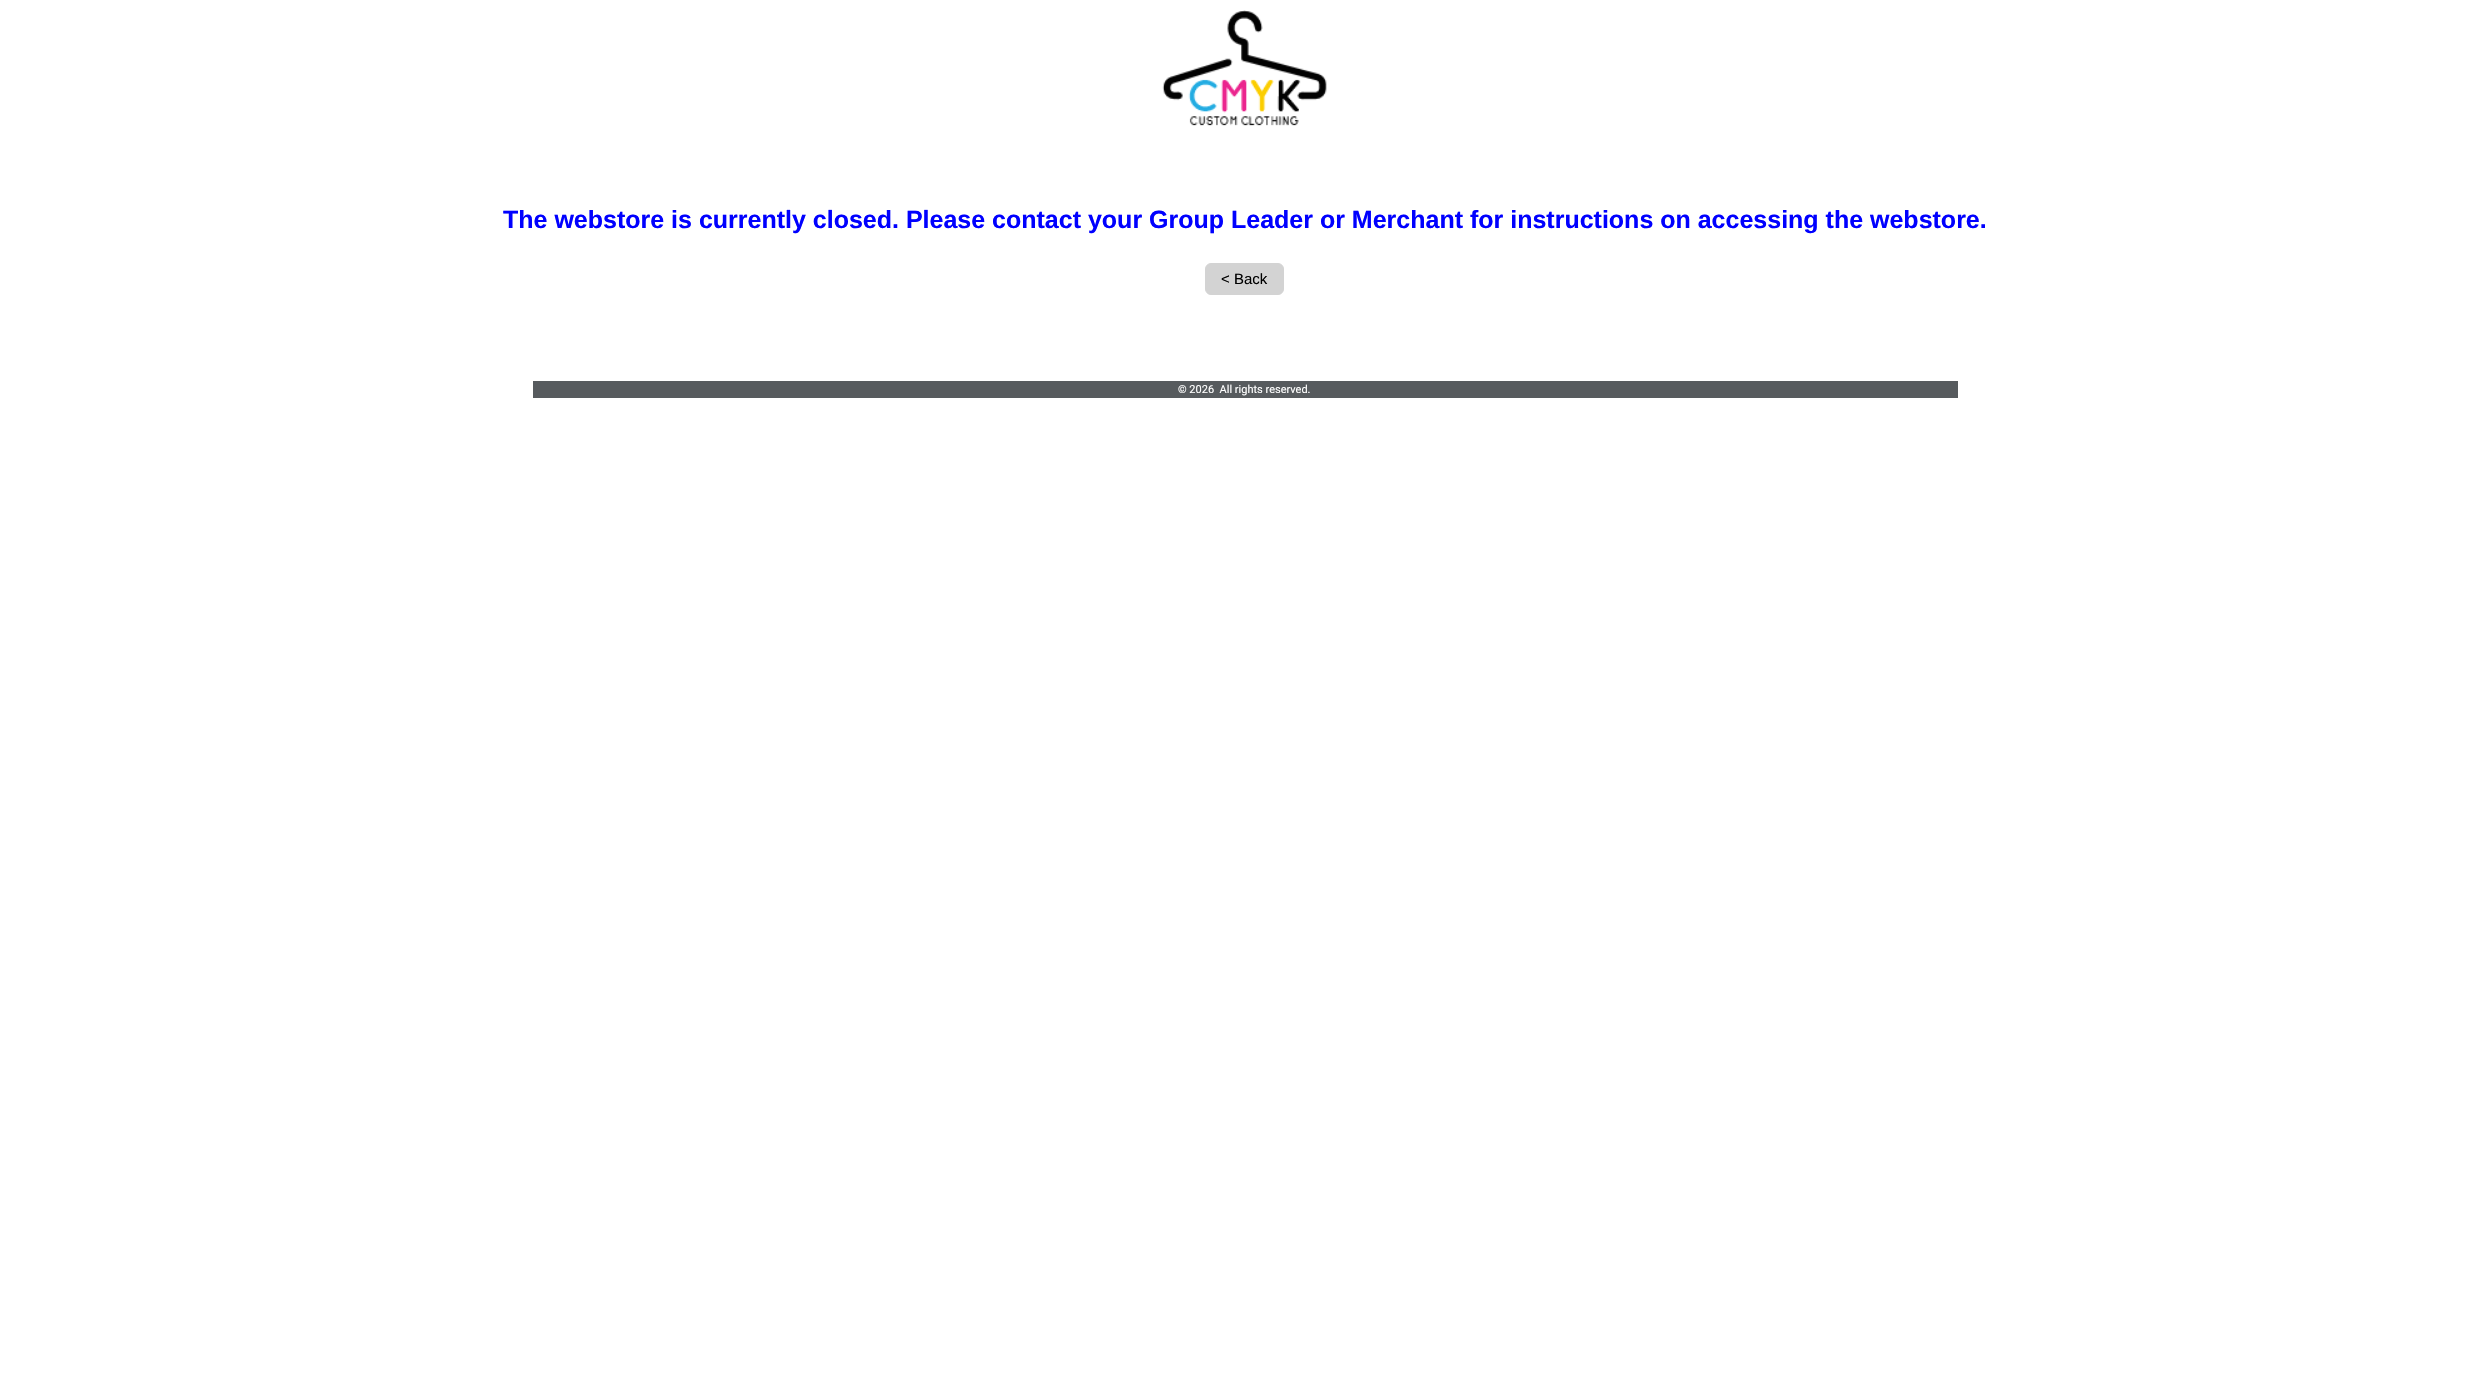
void draw(SkCanvas* canvas) {
	SkPaint fill;
	fill.setAntiAlias(true);
	auto makeFont = [&](const char* family, int weight, float size, bool italic = false) {
		SkFontStyle style(weight, SkFontStyle::kNormal_Width,
			italic ? SkFontStyle::kItalic_Slant : SkFontStyle::kUpright_Slant);
		SkFont result(fontMgr->matchFamilyStyle(family, style), size);
		result.setSubpixel(true);
		return result;
	};
	auto text = [&](const char* s, float x, float y, const SkFont& font) {
		canvas->drawString(s, x, y, font, fill);
	};
	auto box = [&](float l, float t, float r, float b) {
		canvas->drawRect(SkRect::MakeLTRB(l, t, r, b), fill);
	};
	auto picture = [&](const char* path, float l, float t, float r, float b) {
		auto image = SkImages::DeferredFromEncodedData(SkData::MakeFromFileName(path));
		canvas->drawImageRect(image, SkRect::MakeLTRB(l, t, r, b), SkSamplingOptions());
	};
	canvas->clear(0xFFFFFFFF);
	picture("image0.png", 1162, 10, 1327, 126);
	fill.setColor(0xFFD3D3D3);
	canvas->drawRoundRect(SkRect::MakeLTRB(1205.5f, 263.5f, 1283.5f, 294.5f), 5.5f, 5.5f, fill);
	fill.setStyle(SkPaint::kStroke_Style);
	fill.setStrokeWidth(1);
	canvas->drawRoundRect(SkRect::MakeLTRB(1205.5f, 263.5f, 1283.5f, 294.5f), 5.5f, 5.5f, fill);
	fill.setStyle(SkPaint::kFill_Style);
	fill.setColor(0xFF575B5E);
	box(533, 381, 1958, 398);
	auto font1 = makeFont("Liberation Sans", 700, 25);
	fill.setColor(0xFF0000FF);
	text("The webstore is currently closed. Please contact your Group Leader or Merchant for instructions on accessing the webstore.", 503, 228, font1);
	auto font2 = makeFont("Liberation Sans", 400, 15);
	fill.setColor(0xFF000000);
	text("< Back", 1221, 284, font2);
	auto font3 = makeFont("Roboto", 400, 11);
	fill.setColor(0xFFFFFFFF);
	text("© 2026  All rights reserved.", 1178, 393, font3);
}
